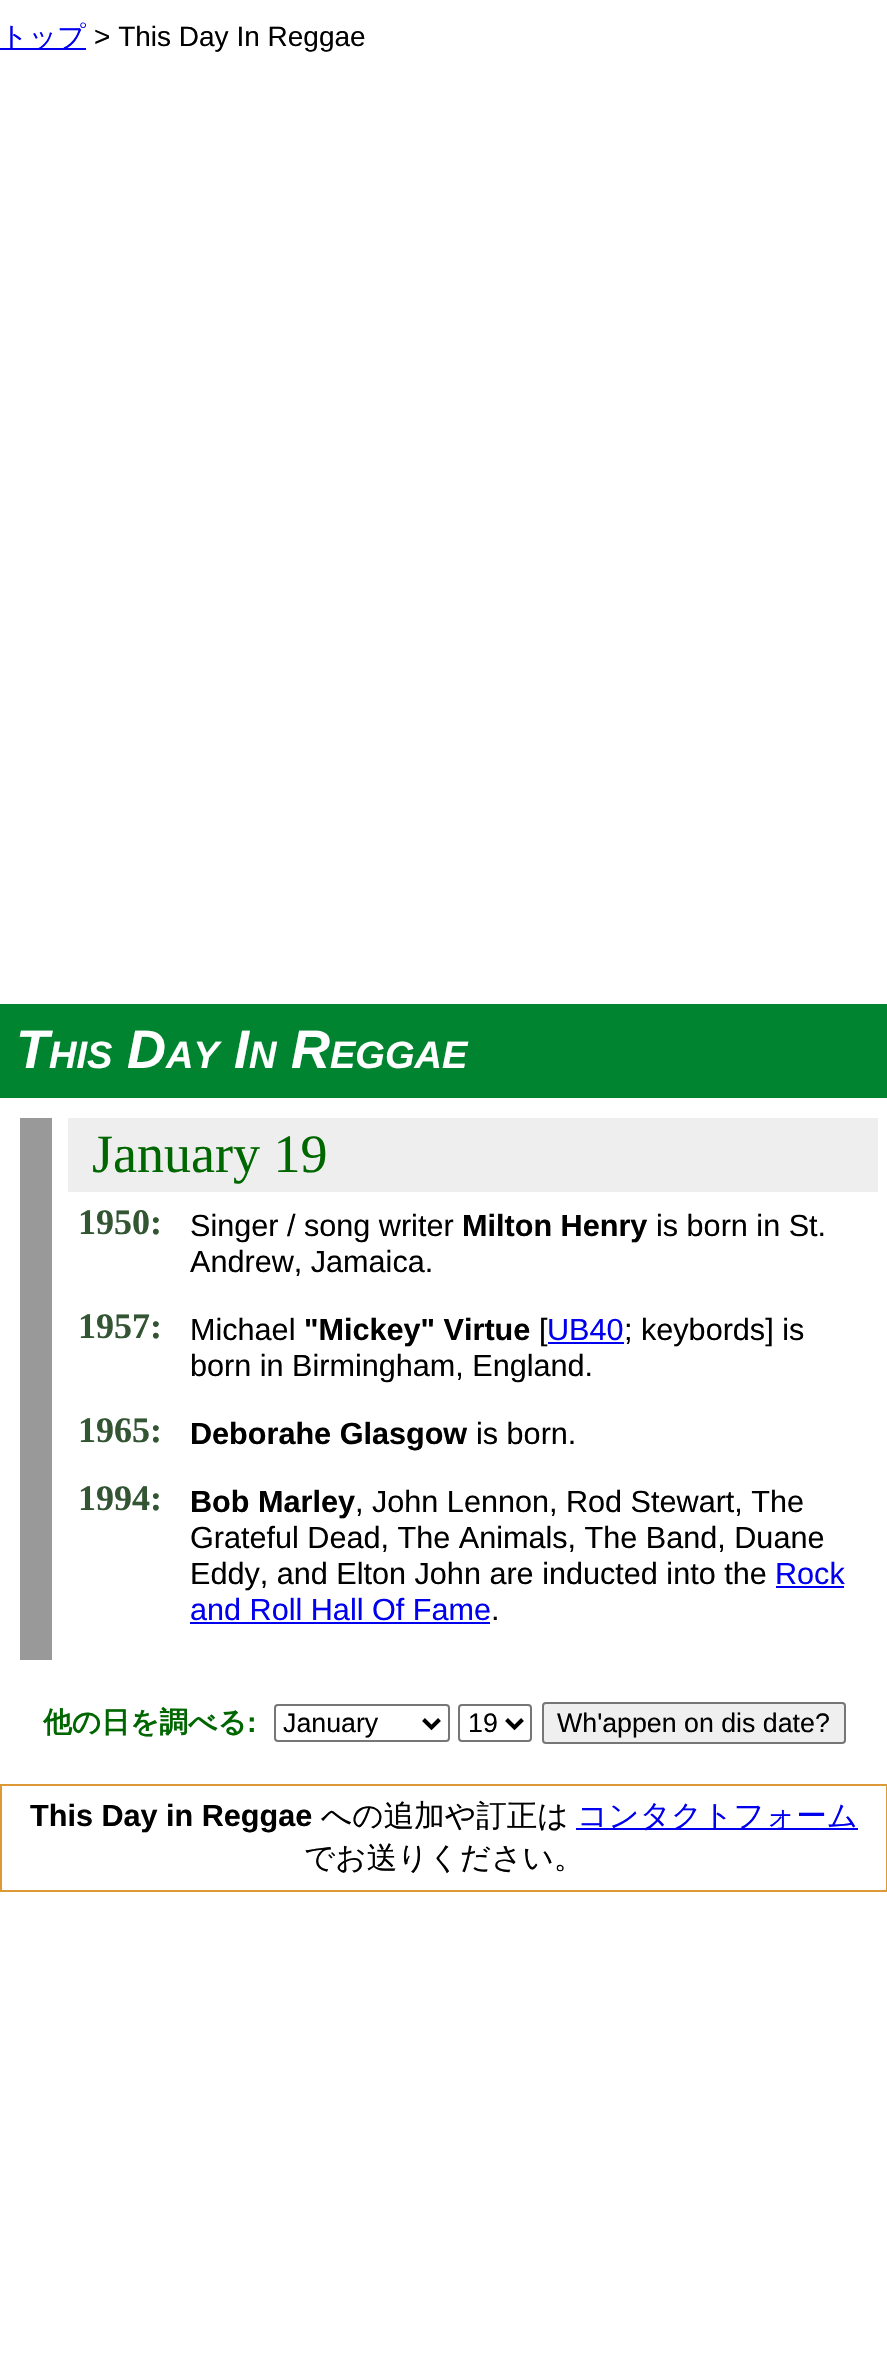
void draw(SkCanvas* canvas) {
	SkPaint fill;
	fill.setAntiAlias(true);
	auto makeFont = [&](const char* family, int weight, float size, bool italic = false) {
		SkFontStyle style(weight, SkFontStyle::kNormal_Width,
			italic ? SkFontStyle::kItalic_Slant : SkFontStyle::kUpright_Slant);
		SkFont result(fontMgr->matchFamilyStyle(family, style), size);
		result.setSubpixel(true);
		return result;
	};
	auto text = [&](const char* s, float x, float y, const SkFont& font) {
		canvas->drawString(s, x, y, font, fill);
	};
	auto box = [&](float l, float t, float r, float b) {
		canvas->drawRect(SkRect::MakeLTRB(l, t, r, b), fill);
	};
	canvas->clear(0xFFFFFFFF);
	fill.setColor(0xFF0000EE);
	box(0, 48, 86, 50);
	fill.setColor(0xFF008430);
	box(0, 1004, 887, 1098);
	fill.setColor(0xFF999999);
	box(20, 1118, 52, 1660);
	fill.setColor(0xFFEEEEEE);
	box(68, 1118, 878, 1192);
	fill.setColor(0xFF0000EE);
	box(548, 1342, 624, 1344);
	box(776, 1586, 844, 1588);
	box(190, 1622, 490, 1624);
	fill.setStyle(SkPaint::kStroke_Style);
	fill.setStrokeWidth(2);
	fill.setColor(0xFF767676);
	canvas->drawRoundRect(SkRect::MakeLTRB(275, 1705, 449, 1741), 3, 3, fill);
	fill.setStrokeWidth(4);
	fill.setColor(0xFF000000);
	canvas->drawPath(SkPathBuilder().moveTo(423.5f, 1719.5f).lineTo(431.5f, 1727.5f).lineTo(439.5f, 1719.5f).detach(), fill);
	fill.setStrokeWidth(2);
	fill.setColor(0xFF767676);
	canvas->drawRoundRect(SkRect::MakeLTRB(459, 1705, 531, 1741), 3, 3, fill);
	fill.setStrokeWidth(4);
	fill.setColor(0xFF000000);
	canvas->drawPath(SkPathBuilder().moveTo(506.5f, 1719.5f).lineTo(514.5f, 1727.5f).lineTo(522.5f, 1719.5f).detach(), fill);
	fill.setStyle(SkPaint::kFill_Style);
	fill.setColor(0xFFEFEFEF);
	canvas->drawRoundRect(SkRect::MakeLTRB(543, 1703, 845, 1743), 3, 3, fill);
	fill.setStyle(SkPaint::kStroke_Style);
	fill.setStrokeWidth(2);
	fill.setColor(0xFF767676);
	canvas->drawRoundRect(SkRect::MakeLTRB(543, 1703, 845, 1743), 3, 3, fill);
	fill.setColor(0xFFDD9933);
	canvas->drawRect(SkRect::MakeLTRB(1, 1785, 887, 1891), fill);
	fill.setStyle(SkPaint::kFill_Style);
	fill.setColor(0xFF0000EE);
	box(576, 1828, 858, 1830);
	auto font1 = makeFont("WenQuanYi Zen Hei", 500, 28);
	text("トップ", 0, 46, font1);
	auto font2 = makeFont("Liberation Sans", 400, 28);
	fill.setColor(0xFF000000);
	text("> This Day In Reggae", 94, 46, font2);
	auto font3 = makeFont("Liberation Sans", 700, 54, true);
	fill.setColor(0xFFFFFFFF);
	text("T", 16, 1068, font3);
	auto font4 = makeFont("Liberation Sans", 700, 38, true);
	text("HIS", 49, 1068, font4);
	text("D", 127, 1068, font3);
	text("AY", 166, 1068, font4);
	text("I", 234, 1068, font3);
	text("N", 249, 1068, font4);
	text("R", 291, 1068, font3);
	text("EGGAE", 330, 1068, font4);
	auto font5 = makeFont("Liberation Serif", 400, 54);
	fill.setColor(0xFF006600);
	text("January 19", 92, 1172, font5);
	auto font6 = makeFont("Liberation Serif", 700, 36);
	fill.setColor(0xFF335533);
	text("1950:", 78, 1234, font6);
	auto font7 = makeFont("Liberation Sans", 400, 30.6f);
	fill.setColor(0xFF000000);
	text("Singer / song writer", 190, 1236, font7);
	auto font8 = makeFont("Liberation Sans", 700, 30.6f);
	text("Milton Henry", 462, 1236, font8);
	text("is born in St.", 656, 1236, font7);
	text("Andrew, Jamaica.", 190, 1272, font7);
	fill.setColor(0xFF335533);
	text("1957:", 78, 1338, font6);
	fill.setColor(0xFF000000);
	text("Michael", 190, 1340, font7);
	text("\"Mickey\" Virtue", 304, 1340, font8);
	text("[", 539, 1340, font7);
	fill.setColor(0xFF0000EE);
	text("UB40", 547, 1340, font7);
	fill.setColor(0xFF000000);
	text("; keybords] is", 624, 1340, font7);
	text("born in Birmingham, England.", 190, 1376, font7);
	fill.setColor(0xFF335533);
	text("1965:", 78, 1442, font6);
	fill.setColor(0xFF000000);
	text("Deborahe Glasgow", 190, 1444, font8);
	text("is born.", 476, 1444, font7);
	fill.setColor(0xFF335533);
	text("1994:", 78, 1510, font6);
	fill.setColor(0xFF000000);
	text("Bob Marley", 190, 1512, font8);
	text(", John Lennon, Rod Stewart, The", 355, 1512, font7);
	text("Grateful Dead, The Animals, The Band, Duane", 190, 1548, font7);
	text("Eddy, and Elton John are inducted into the", 190, 1584, font7);
	fill.setColor(0xFF0000EE);
	text("Rock", 775, 1584, font7);
	text("and Roll Hall Of Fame", 190, 1620, font7);
	fill.setColor(0xFF000000);
	text(".", 491, 1620, font7);
	auto font9 = makeFont("WenQuanYi Zen Hei", 700, 28.75f);
	fill.setColor(0xFF006600);
	text("他の日を調べる", 43, 1732, font9);
	auto font10 = makeFont("Liberation Sans", 700, 28.75f);
	text(":", 247, 1732, font10);
	auto font11 = makeFont("Liberation Sans", 400, 26.75f);
	fill.setColor(0xFF000000);
	text("January", 283, 1732, font11);
	text("19", 468, 1732, font11);
	text("Wh'appen on dis date?", 557, 1732, font11);
	text("This Day in Reggae", 30, 1826, font8);
	auto font12 = makeFont("WenQuanYi Zen Hei", 500, 30.6f);
	text("への追加や訂正は", 321, 1826, font12);
	fill.setColor(0xFF0000EE);
	text("コンタクトフォーム", 577, 1826, font12);
	fill.setColor(0xFF000000);
	text("でお送りください。", 304, 1868, font12);
}
